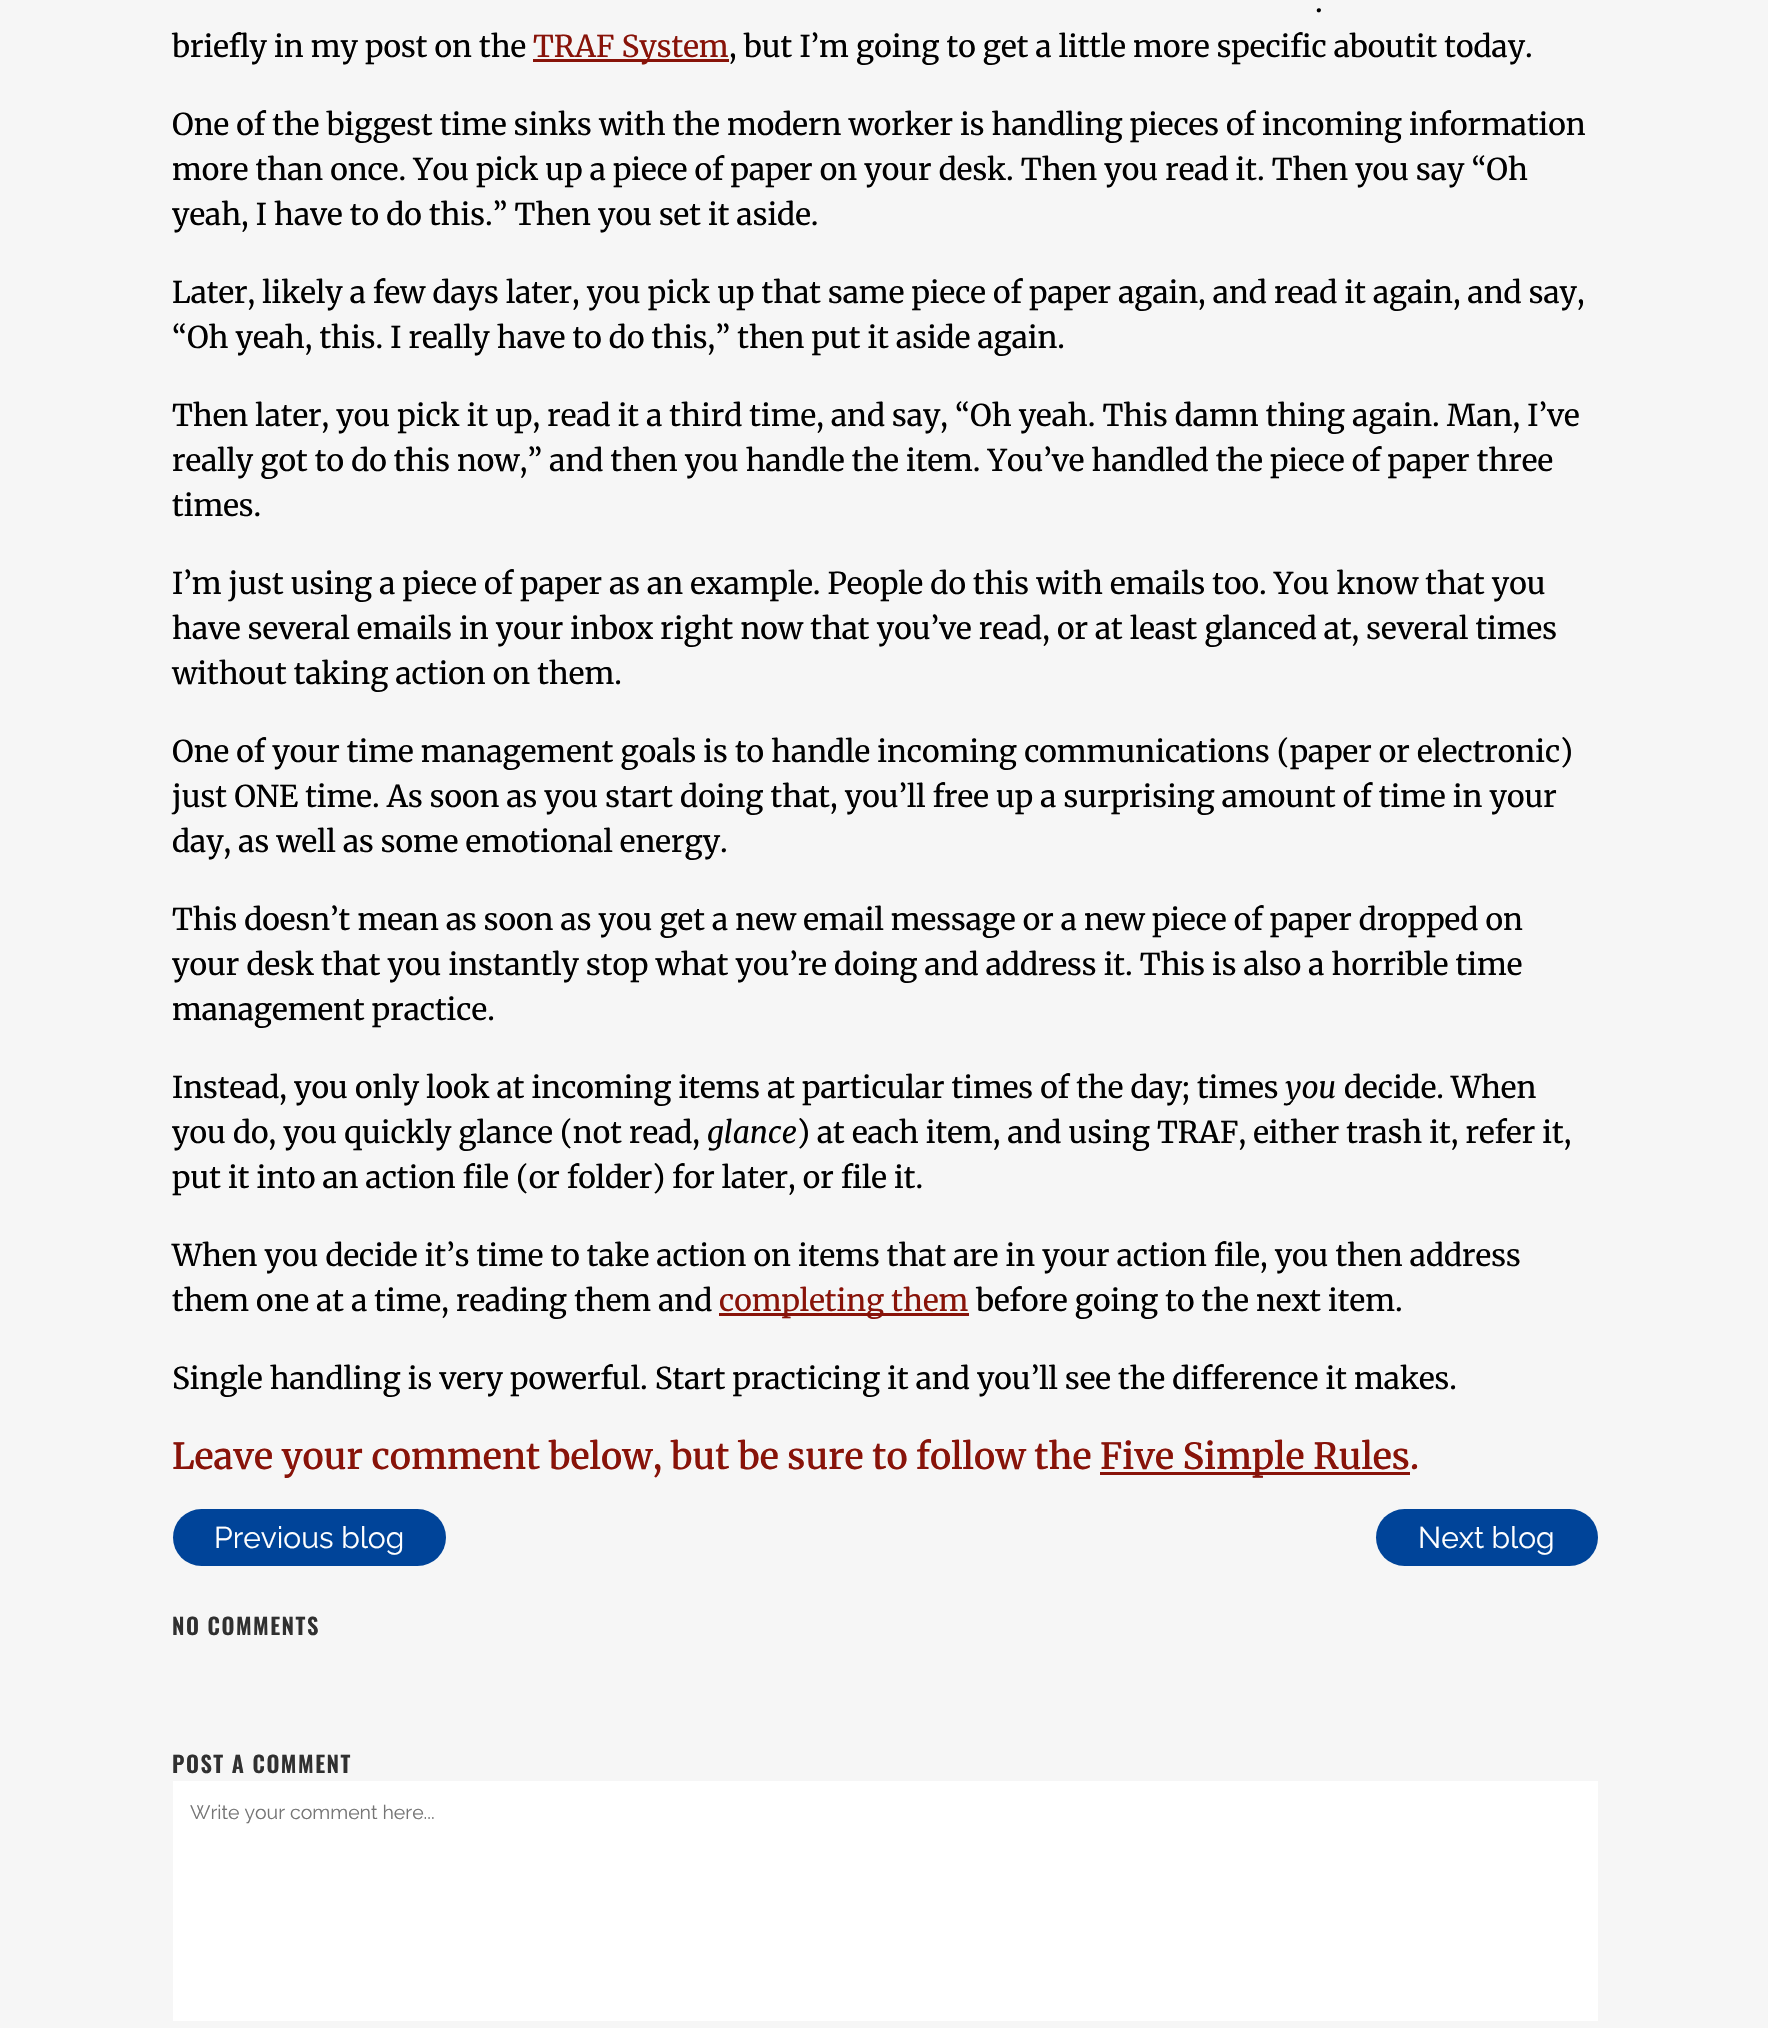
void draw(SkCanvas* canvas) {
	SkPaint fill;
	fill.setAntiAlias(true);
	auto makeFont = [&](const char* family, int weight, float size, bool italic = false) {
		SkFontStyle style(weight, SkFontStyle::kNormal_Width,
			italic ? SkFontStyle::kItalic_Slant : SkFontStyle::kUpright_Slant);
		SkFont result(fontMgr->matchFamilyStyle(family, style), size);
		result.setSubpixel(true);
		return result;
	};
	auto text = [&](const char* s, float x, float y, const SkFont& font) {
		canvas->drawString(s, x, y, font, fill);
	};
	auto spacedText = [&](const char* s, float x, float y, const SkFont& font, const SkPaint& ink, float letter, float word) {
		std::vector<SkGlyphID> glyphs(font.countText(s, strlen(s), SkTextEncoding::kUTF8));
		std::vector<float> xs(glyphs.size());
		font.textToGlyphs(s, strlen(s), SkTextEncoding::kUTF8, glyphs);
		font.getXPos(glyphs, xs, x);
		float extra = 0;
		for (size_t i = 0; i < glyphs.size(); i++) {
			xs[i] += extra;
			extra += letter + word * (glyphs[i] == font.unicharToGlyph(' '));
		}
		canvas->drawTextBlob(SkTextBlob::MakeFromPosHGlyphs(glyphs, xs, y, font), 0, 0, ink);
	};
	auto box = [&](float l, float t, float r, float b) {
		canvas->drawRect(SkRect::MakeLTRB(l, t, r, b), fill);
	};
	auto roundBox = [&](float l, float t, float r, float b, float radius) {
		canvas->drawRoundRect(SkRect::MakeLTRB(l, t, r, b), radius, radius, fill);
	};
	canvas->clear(0xFFF6F6F6);
	fill.setColor(0xFF881309);
	box(533, 59, 729, 62);
	box(719, 1313, 969, 1316);
	box(1100, 1472, 1410, 1475);
	fill.setColor(0xFF004499);
	roundBox(173, 1509, 446, 1566, 28.5f);
	roundBox(1376, 1509, 1598, 1566, 28.5f);
	fill.setColor(0xFFFFFFFF);
	box(173, 1781, 1598, 2021);
	auto font1 = makeFont("Merriweather", 400, 30);
	fill.setColor(0xFF000000);
	text(".", 1315, 12, font1);
	text("briefly in my post on the", 172, 57, font1);
	fill.setColor(0xFF881309);
	text("TRAF System", 533, 57, font1);
	fill.setColor(0xFF000000);
	text(", but I’m going to get a little more specific aboutit today.", 729, 57, font1);
	text("One of the biggest time sinks with the modern worker is handling pieces of incoming information", 172, 135, font1);
	text("more than once. You pick up a piece of paper on your desk. Then you read it. Then you say “Oh", 172, 180, font1);
	text("yeah, I have to do this.” Then you set it aside.", 172, 225, font1);
	text("Later, likely a few days later, you pick up that same piece of paper again, and read it again, and say,", 172, 303, font1);
	text("“Oh yeah, this. I really have to do this,” then put it aside again.", 172, 348, font1);
	text("Then later, you pick it up, read it a third time, and say, “Oh yeah. This damn thing again. Man, I’ve", 172, 426, font1);
	text("really got to do this now,” and then you handle the item. You’ve handled the piece of paper three", 172, 471, font1);
	text("times.", 172, 516, font1);
	text("I’m just using a piece of paper as an example. People do this with emails too. You know that you", 172, 594, font1);
	text("have several emails in your inbox right now that you’ve read, or at least glanced at, several times", 172, 639, font1);
	text("without taking action on them.", 172, 684, font1);
	text("One of your time management goals is to handle incoming communications (paper or electronic)", 172, 762, font1);
	text("just ONE time. As soon as you start doing that, you’ll free up a surprising amount of time in your", 172, 807, font1);
	text("day, as well as some emotional energy.", 172, 852, font1);
	text("This doesn’t mean as soon as you get a new email message or a new piece of paper dropped on", 172, 930, font1);
	text("your desk that you instantly stop what you’re doing and address it. This is also a horrible time", 172, 975, font1);
	text("management practice.", 172, 1020, font1);
	text("Instead, you only look at incoming items at particular times of the day; times", 172, 1098, font1);
	auto font2 = makeFont("Merriweather", 400, 30, true);
	text("you", 1285, 1098, font2);
	text("decide. When", 1344, 1098, font1);
	text("you do, you quickly glance (not read,", 172, 1143, font1);
	text("glance", 707, 1143, font2);
	text(") at each item, and using TRAF, either trash it, refer it,", 797, 1143, font1);
	text("put it into an action file (or folder) for later, or file it.", 172, 1188, font1);
	text("When you decide it’s time to take action on items that are in your action file, you then address", 172, 1266, font1);
	text("them one at a time, reading them and", 172, 1311, font1);
	fill.setColor(0xFF881309);
	text("completing them", 719, 1311, font1);
	fill.setColor(0xFF000000);
	text("before going to the next item.", 976, 1311, font1);
	text("Single handling is very powerful. Start practicing it and you’ll see the difference it makes.", 172, 1389, font1);
	auto font3 = makeFont("Merriweather", 600, 36);
	fill.setColor(0xFF881309);
	text("Leave your comment below, but be sure to follow the", 172, 1469, font3);
	text("Five Simple Rules.", 1100, 1469, font3);
	auto font4 = makeFont("Raleway", 400, 30);
	fill.setColor(0xFFFFFFFF);
	text("Previous blog", 214, 1548, font4);
	text("Next blog", 1418, 1548, font4);
	auto font5 = makeFont("Oswald", 600, 22.5f);
	fill.setColor(0xFF303030);
	spacedText("NO COMMENTS", 172, 1635, font5, fill, 1.5f, 0);
	spacedText("POST A COMMENT", 172, 1773, font5, fill, 1.5f, 0);
	auto font6 = makeFont("Raleway", 400, 19.5f);
	fill.setColor(0xFF757575);
	text("Write your comment here...", 190, 1819, font6);
}
